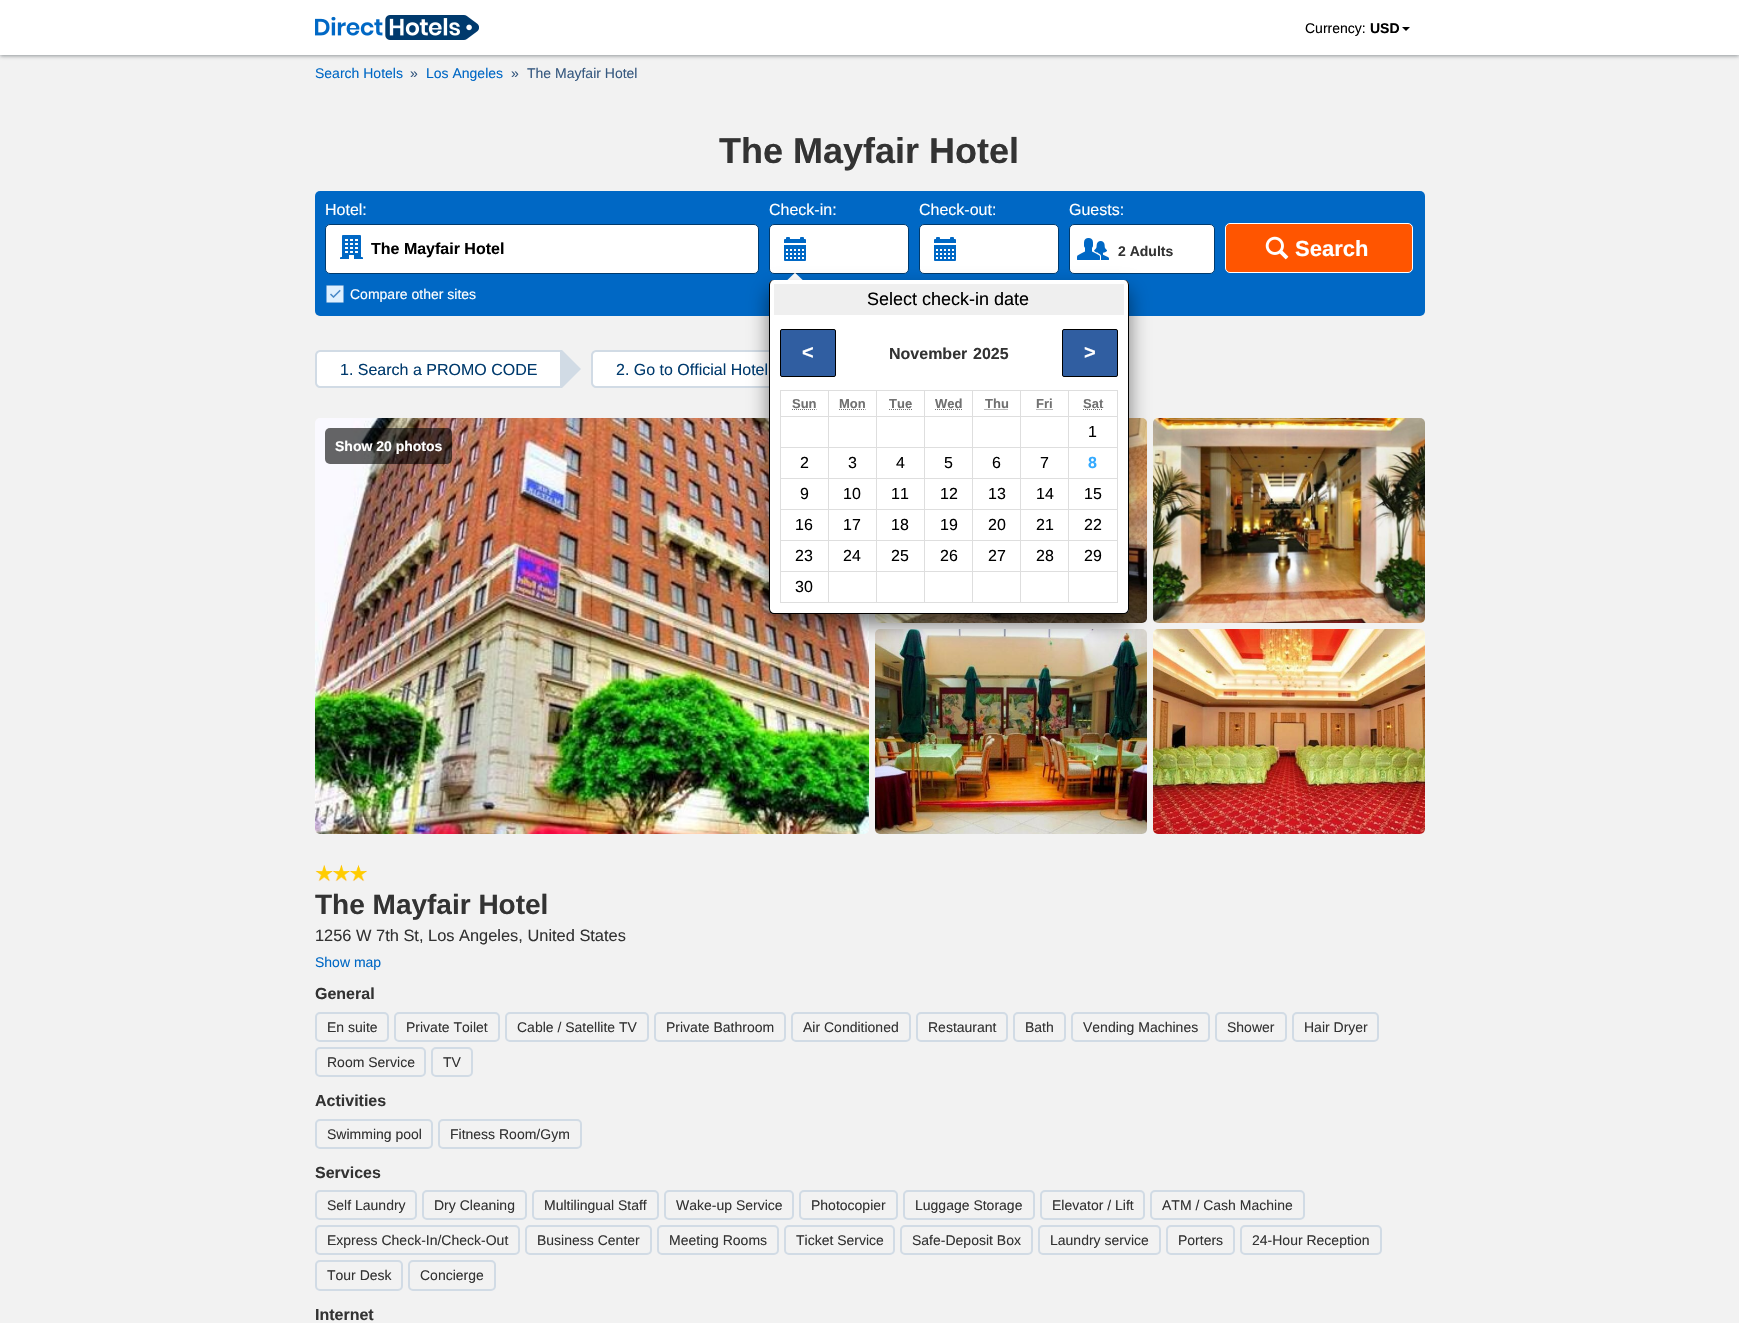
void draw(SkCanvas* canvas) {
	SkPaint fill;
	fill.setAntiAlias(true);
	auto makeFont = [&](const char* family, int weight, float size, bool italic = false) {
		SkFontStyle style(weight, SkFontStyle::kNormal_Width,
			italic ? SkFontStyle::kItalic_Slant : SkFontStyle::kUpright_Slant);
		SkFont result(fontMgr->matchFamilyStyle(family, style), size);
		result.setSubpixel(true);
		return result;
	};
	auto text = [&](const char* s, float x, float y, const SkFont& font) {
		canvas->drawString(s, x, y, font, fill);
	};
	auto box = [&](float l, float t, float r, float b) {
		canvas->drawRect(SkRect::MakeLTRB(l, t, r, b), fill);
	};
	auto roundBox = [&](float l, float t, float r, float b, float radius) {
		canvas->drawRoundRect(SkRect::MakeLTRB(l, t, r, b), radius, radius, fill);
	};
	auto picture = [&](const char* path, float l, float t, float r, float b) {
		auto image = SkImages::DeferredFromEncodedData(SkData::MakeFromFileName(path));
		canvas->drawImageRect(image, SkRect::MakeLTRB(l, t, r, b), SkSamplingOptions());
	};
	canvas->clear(0xFFF2F2F2);
	fill.setColor(0x80293339);
	fill.setMaskFilter(SkMaskFilter::MakeBlur(kNormal_SkBlurStyle, 2));
	canvas->drawRect(SkRect::MakeLTRB(0, 1, 1739, 56), fill);
	fill.setMaskFilter(nullptr);
	fill.setColor(0xFFFFFFFF);
	box(0, 0, 1739, 55);
	picture("image0.png", 315, 15, 479, 40);
	fill.setColor(0xFF000000);
	canvas->drawPath(SkPathBuilder().moveTo(1402, 27).lineTo(1410, 27).lineTo(1406, 31).close().detach(), fill);
	fill.setColor(0xFF0068C5);
	roundBox(315, 191, 1425, 316, 5);
	fill.setColor(0xFFFFFFFF);
	canvas->drawRoundRect(SkRect::MakeLTRB(325.5f, 224.5f, 758.5f, 273.5f), 4.5f, 4.5f, fill);
	fill.setStyle(SkPaint::kStroke_Style);
	fill.setStrokeWidth(1);
	fill.setColor(0xFF003A6D);
	canvas->drawRoundRect(SkRect::MakeLTRB(325.5f, 224.5f, 758.5f, 273.5f), 4.5f, 4.5f, fill);
	picture("image1.png", 340, 235, 363, 259);
	fill.setStyle(SkPaint::kFill_Style);
	fill.setColor(0xFFFFFFFF);
	canvas->drawRoundRect(SkRect::MakeLTRB(769.5f, 224.5f, 908.5f, 273.5f), 4.5f, 4.5f, fill);
	fill.setStyle(SkPaint::kStroke_Style);
	fill.setColor(0xFF003A6D);
	canvas->drawRoundRect(SkRect::MakeLTRB(769.5f, 224.5f, 908.5f, 273.5f), 4.5f, 4.5f, fill);
	picture("image2.png", 784, 237, 806, 261);
	fill.setStyle(SkPaint::kFill_Style);
	fill.setColor(0xFFFFFFFF);
	canvas->drawRoundRect(SkRect::MakeLTRB(919.5f, 224.5f, 1058.5f, 273.5f), 4.5f, 4.5f, fill);
	fill.setStyle(SkPaint::kStroke_Style);
	fill.setColor(0xFF003A6D);
	canvas->drawRoundRect(SkRect::MakeLTRB(919.5f, 224.5f, 1058.5f, 273.5f), 4.5f, 4.5f, fill);
	picture("image2.png", 934, 237, 956, 261);
	fill.setStyle(SkPaint::kFill_Style);
	fill.setColor(0xFFFFFFFF);
	canvas->drawRoundRect(SkRect::MakeLTRB(1069.5f, 224.5f, 1214.5f, 273.5f), 4.5f, 4.5f, fill);
	fill.setStyle(SkPaint::kStroke_Style);
	fill.setColor(0xFF003A6D);
	canvas->drawRoundRect(SkRect::MakeLTRB(1069.5f, 224.5f, 1214.5f, 273.5f), 4.5f, 4.5f, fill);
	picture("image3.png", 1077, 238, 1109, 260);
	fill.setStyle(SkPaint::kFill_Style);
	fill.setColor(0xFFFF5500);
	canvas->drawRoundRect(SkRect::MakeLTRB(1225.5f, 223.5f, 1412.5f, 272.5f), 4.5f, 4.5f, fill);
	fill.setStyle(SkPaint::kStroke_Style);
	fill.setColor(0xFFFFFFFF);
	canvas->drawRoundRect(SkRect::MakeLTRB(1225.5f, 223.5f, 1412.5f, 272.5f), 4.5f, 4.5f, fill);
	picture("image4.png", 1265, 236, 1289, 260);
	picture("image5.png", 326, 285, 344, 303);
	picture("image6.png", 787, 273, 803, 280);
	fill.setStyle(SkPaint::kFill_Style);
	canvas->drawPath(SkPathBuilder().moveTo(596, 351).lineTo(824, 351).lineTo(824, 387).lineTo(596, 387).cubicTo(594, 387, 592, 385, 592, 383).lineTo(592, 355).cubicTo(592, 353, 594, 351, 596, 351).close().detach(), fill);
	fill.setStyle(SkPaint::kStroke_Style);
	fill.setStrokeWidth(2);
	fill.setColor(0xFFD1DBE5);
	canvas->drawPath(SkPathBuilder().moveTo(596, 351).lineTo(824, 351).lineTo(824, 387).lineTo(596, 387).cubicTo(594, 387, 592, 385, 592, 383).lineTo(592, 355).cubicTo(592, 353, 594, 351, 596, 351).close().detach(), fill);
	picture("image7.png", 315, 418, 869, 834);
	picture("image8.png", 875, 418, 1147, 623);
	picture("image9.png", 1153, 418, 1425, 623);
	picture("image10.png", 875, 629, 1147, 834);
	picture("image11.png", 1153, 629, 1425, 834);
	fill.setStyle(SkPaint::kFill_Style);
	fill.setColor(0x80000000);
	fill.setMaskFilter(SkMaskFilter::MakeBlur(kNormal_SkBlurStyle, 10));
	canvas->drawRoundRect(SkRect::MakeLTRB(769, 290, 1129, 624), 5, 5, fill);
	fill.setMaskFilter(nullptr);
	fill.setColor(0xFFFFFFFF);
	roundBox(769, 280, 1129, 614, 5);
	fill.setColor(0xFF000000);
	canvas->drawPath(SkPathBuilder(SkPathFillType::kEvenOdd).moveTo(774, 280).lineTo(1124, 280).cubicTo(1127, 280, 1129, 282, 1129, 285).lineTo(1129, 609).cubicTo(1129, 612, 1127, 614, 1124, 614).lineTo(774, 614).cubicTo(771, 614, 769, 612, 769, 609).lineTo(769, 285).cubicTo(769, 282, 771, 280, 774, 280).close().moveTo(774, 280).lineTo(1124, 280).cubicTo(1126, 280, 1128, 282, 1128, 285).lineTo(1128, 609).cubicTo(1128, 611, 1126, 613, 1124, 613).lineTo(774, 613).cubicTo(772, 613, 770, 611, 770, 609).lineTo(770, 285).cubicTo(770, 282, 772, 280, 774, 280).close().detach(), fill);
	fill.setColor(0xFFEFEFEF);
	box(774, 284, 1124, 315);
	fill.setColor(0xFF305EA1);
	canvas->drawRoundRect(SkRect::MakeLTRB(780.5f, 329.5f, 835.5f, 376.5f), 1.5f, 1.5f, fill);
	fill.setStyle(SkPaint::kStroke_Style);
	fill.setStrokeWidth(1);
	fill.setColor(0xFF000000);
	canvas->drawRoundRect(SkRect::MakeLTRB(780.5f, 329.5f, 835.5f, 376.5f), 1.5f, 1.5f, fill);
	fill.setStyle(SkPaint::kFill_Style);
	fill.setColor(0xFF305EA1);
	canvas->drawRoundRect(SkRect::MakeLTRB(1062.5f, 329.5f, 1117.5f, 376.5f), 1.5f, 1.5f, fill);
	fill.setStyle(SkPaint::kStroke_Style);
	fill.setColor(0xFF000000);
	canvas->drawRoundRect(SkRect::MakeLTRB(1062.5f, 329.5f, 1117.5f, 376.5f), 1.5f, 1.5f, fill);
	fill.setStyle(SkPaint::kFill_Style);
	fill.setColor(0xFFDEDEDE);
	box(1068, 390, 1118, 391);
	box(1068, 416, 1118, 417);
	box(1068, 447, 1118, 448);
	box(1068, 478, 1118, 479);
	box(1068, 509, 1118, 510);
	box(1068, 540, 1118, 541);
	box(1068, 571, 1118, 572);
	box(1117, 571, 1118, 603);
	box(1068, 602, 1118, 603);
	box(1068, 571, 1069, 603);
	box(1020, 571, 1069, 572);
	box(1068, 540, 1069, 572);
	box(1020, 540, 1069, 541);
	box(1068, 509, 1069, 541);
	box(1020, 509, 1069, 510);
	box(1068, 478, 1069, 510);
	box(1020, 478, 1069, 479);
	box(1068, 447, 1069, 479);
	box(1020, 447, 1069, 448);
	box(1068, 416, 1069, 448);
	box(1020, 416, 1069, 417);
	box(1068, 390, 1069, 417);
	box(1020, 390, 1069, 391);
	box(1020, 602, 1069, 603);
	box(1020, 571, 1021, 603);
	box(972, 571, 1021, 572);
	box(1020, 540, 1021, 572);
	box(972, 540, 1021, 541);
	box(1020, 509, 1021, 541);
	box(972, 509, 1021, 510);
	box(1020, 478, 1021, 510);
	box(972, 478, 1021, 479);
	box(1020, 447, 1021, 479);
	box(972, 447, 1021, 448);
	box(1020, 416, 1021, 448);
	box(972, 416, 1021, 417);
	box(1020, 390, 1021, 417);
	box(972, 390, 1021, 391);
	box(972, 602, 1021, 603);
	box(972, 571, 973, 603);
	box(924, 571, 973, 572);
	box(972, 540, 973, 572);
	box(924, 540, 973, 541);
	box(972, 509, 973, 541);
	box(924, 509, 973, 510);
	box(972, 478, 973, 510);
	box(924, 478, 973, 479);
	box(972, 447, 973, 479);
	box(924, 447, 973, 448);
	box(972, 416, 973, 448);
	box(924, 416, 973, 417);
	box(972, 390, 973, 417);
	box(924, 390, 973, 391);
	box(924, 602, 973, 603);
	box(924, 571, 925, 603);
	box(876, 571, 925, 572);
	box(924, 540, 925, 572);
	box(876, 540, 925, 541);
	box(924, 509, 925, 541);
	box(876, 509, 925, 510);
	box(924, 478, 925, 510);
	box(876, 478, 925, 479);
	box(924, 447, 925, 479);
	box(876, 447, 925, 448);
	box(924, 416, 925, 448);
	box(876, 416, 925, 417);
	box(924, 390, 925, 417);
	box(876, 390, 925, 391);
	box(876, 602, 925, 603);
	box(876, 571, 877, 603);
	box(828, 571, 877, 572);
	box(876, 540, 877, 572);
	box(828, 540, 877, 541);
	box(876, 509, 877, 541);
	box(828, 509, 877, 510);
	box(876, 478, 877, 510);
	box(828, 478, 877, 479);
	box(876, 447, 877, 479);
	box(828, 447, 877, 448);
	box(876, 416, 877, 448);
	box(828, 416, 877, 417);
	box(876, 390, 877, 417);
	box(828, 390, 877, 391);
	box(828, 602, 877, 603);
	box(828, 571, 829, 603);
	box(780, 571, 829, 572);
	box(828, 540, 829, 572);
	box(780, 540, 829, 541);
	box(828, 509, 829, 541);
	box(780, 509, 829, 510);
	box(828, 478, 829, 510);
	box(780, 478, 829, 479);
	box(828, 447, 829, 479);
	box(780, 447, 829, 448);
	box(828, 416, 829, 448);
	box(780, 416, 829, 417);
	box(828, 390, 829, 417);
	box(780, 390, 829, 391);
	box(780, 602, 829, 603);
	box(780, 571, 781, 603);
	box(780, 540, 781, 572);
	box(780, 509, 781, 541);
	box(780, 478, 781, 510);
	box(780, 447, 781, 479);
	box(780, 416, 781, 448);
	box(780, 390, 781, 417);
	fill.setStyle(SkPaint::kStroke_Style);
	fill.setColor(0xFF717171);
	fill.setPathEffect(SkDashPathEffect::Make({{1, 1}}, 0));
	canvas->drawPath(SkPathBuilder().moveTo(792, 409.5f).lineTo(816.5f, 409.5f).detach(), fill);
	fill.setPathEffect(nullptr);
	fill.setPathEffect(SkDashPathEffect::Make({{1, 1}}, 0));
	canvas->drawPath(SkPathBuilder().moveTo(839, 409.5f).lineTo(865.5f, 409.5f).detach(), fill);
	fill.setPathEffect(nullptr);
	fill.setPathEffect(SkDashPathEffect::Make({{1, 1}}, 0));
	canvas->drawPath(SkPathBuilder().moveTo(889, 409.5f).lineTo(912, 409.5f).detach(), fill);
	fill.setPathEffect(nullptr);
	fill.setPathEffect(SkDashPathEffect::Make({{1, 1}}, 0));
	canvas->drawPath(SkPathBuilder().moveTo(935, 409.5f).lineTo(962, 409.5f).detach(), fill);
	fill.setPathEffect(nullptr);
	fill.setPathEffect(SkDashPathEffect::Make({{1, 1}}, 0));
	canvas->drawPath(SkPathBuilder().moveTo(984.5f, 409.5f).lineTo(1008.5f, 409.5f).detach(), fill);
	fill.setPathEffect(nullptr);
	fill.setPathEffect(SkDashPathEffect::Make({{1, 1}}, 0));
	canvas->drawPath(SkPathBuilder().moveTo(1036.5f, 409.5f).lineTo(1053, 409.5f).detach(), fill);
	fill.setPathEffect(nullptr);
	fill.setStyle(SkPaint::kFill_Style);
	fill.setColor(0xFFDEDEDE);
	box(1117, 540, 1118, 572);
	box(1117, 509, 1118, 541);
	box(1117, 478, 1118, 510);
	box(1117, 447, 1118, 479);
	box(1117, 416, 1118, 448);
	box(1117, 390, 1118, 417);
	fill.setStyle(SkPaint::kStroke_Style);
	fill.setColor(0xFF717171);
	fill.setPathEffect(SkDashPathEffect::Make({{1, 1}}, 0));
	canvas->drawPath(SkPathBuilder().moveTo(1083, 409.5f).lineTo(1103, 409.5f).detach(), fill);
	fill.setPathEffect(nullptr);
	fill.setStyle(SkPaint::kFill_Style);
	fill.setColor(0xFFFFFFFF);
	canvas->drawPath(SkPathBuilder().moveTo(320, 351).lineTo(561, 351).lineTo(561, 387).lineTo(320, 387).cubicTo(318, 387, 316, 385, 316, 383).lineTo(316, 355).cubicTo(316, 353, 318, 351, 320, 351).close().detach(), fill);
	fill.setStyle(SkPaint::kStroke_Style);
	fill.setStrokeWidth(2);
	fill.setColor(0xFFD1DBE5);
	canvas->drawPath(SkPathBuilder().moveTo(320, 351).lineTo(561, 351).lineTo(561, 387).lineTo(320, 387).cubicTo(318, 387, 316, 385, 316, 383).lineTo(316, 355).cubicTo(316, 353, 318, 351, 320, 351).close().detach(), fill);
	fill.setStyle(SkPaint::kFill_Style);
	canvas->drawPath(SkPathBuilder().moveTo(562, 388).lineTo(562, 350).lineTo(581, 369).close().detach(), fill);
	fill.setColor(0x99000000);
	roundBox(325, 428, 452, 464, 5);
	picture("image12.png", 315, 864, 367, 882);
	fill.setStyle(SkPaint::kStroke_Style);
	fill.setColor(0xFFD1DBE5);
	canvas->drawRoundRect(SkRect::MakeLTRB(316, 1013, 388, 1041), 4, 4, fill);
	canvas->drawRoundRect(SkRect::MakeLTRB(395, 1013, 499, 1041), 4, 4, fill);
	canvas->drawRoundRect(SkRect::MakeLTRB(506, 1013, 648, 1041), 4, 4, fill);
	canvas->drawRoundRect(SkRect::MakeLTRB(655, 1013, 785, 1041), 4, 4, fill);
	canvas->drawRoundRect(SkRect::MakeLTRB(792, 1013, 910, 1041), 4, 4, fill);
	canvas->drawRoundRect(SkRect::MakeLTRB(917, 1013, 1007, 1041), 4, 4, fill);
	canvas->drawRoundRect(SkRect::MakeLTRB(1014, 1013, 1065, 1041), 4, 4, fill);
	canvas->drawRoundRect(SkRect::MakeLTRB(1072, 1013, 1209, 1041), 4, 4, fill);
	canvas->drawRoundRect(SkRect::MakeLTRB(1216, 1013, 1286, 1041), 4, 4, fill);
	canvas->drawRoundRect(SkRect::MakeLTRB(1293, 1013, 1378, 1041), 4, 4, fill);
	canvas->drawRoundRect(SkRect::MakeLTRB(316, 1048, 425, 1076), 4, 4, fill);
	canvas->drawRoundRect(SkRect::MakeLTRB(432, 1048, 472, 1076), 4, 4, fill);
	canvas->drawRoundRect(SkRect::MakeLTRB(316, 1120, 432, 1148), 4, 4, fill);
	canvas->drawRoundRect(SkRect::MakeLTRB(439, 1120, 581, 1148), 4, 4, fill);
	canvas->drawRoundRect(SkRect::MakeLTRB(316, 1191, 416, 1219), 4, 4, fill);
	canvas->drawRoundRect(SkRect::MakeLTRB(423, 1191, 526, 1219), 4, 4, fill);
	canvas->drawRoundRect(SkRect::MakeLTRB(533, 1191, 658, 1219), 4, 4, fill);
	canvas->drawRoundRect(SkRect::MakeLTRB(665, 1191, 793, 1219), 4, 4, fill);
	canvas->drawRoundRect(SkRect::MakeLTRB(800, 1191, 897, 1219), 4, 4, fill);
	canvas->drawRoundRect(SkRect::MakeLTRB(904, 1191, 1034, 1219), 4, 4, fill);
	canvas->drawRoundRect(SkRect::MakeLTRB(1041, 1191, 1144, 1219), 4, 4, fill);
	canvas->drawRoundRect(SkRect::MakeLTRB(1151, 1191, 1304, 1219), 4, 4, fill);
	canvas->drawRoundRect(SkRect::MakeLTRB(316, 1226, 519, 1254), 4, 4, fill);
	canvas->drawRoundRect(SkRect::MakeLTRB(526, 1226, 651, 1254), 4, 4, fill);
	canvas->drawRoundRect(SkRect::MakeLTRB(658, 1226, 778, 1254), 4, 4, fill);
	canvas->drawRoundRect(SkRect::MakeLTRB(785, 1226, 894, 1254), 4, 4, fill);
	canvas->drawRoundRect(SkRect::MakeLTRB(901, 1226, 1032, 1254), 4, 4, fill);
	canvas->drawRoundRect(SkRect::MakeLTRB(1039, 1226, 1160, 1254), 4, 4, fill);
	canvas->drawRoundRect(SkRect::MakeLTRB(1167, 1226, 1234, 1254), 4, 4, fill);
	canvas->drawRoundRect(SkRect::MakeLTRB(1241, 1226, 1381, 1254), 4, 4, fill);
	canvas->drawRoundRect(SkRect::MakeLTRB(316, 1261, 402, 1290), 4, 4, fill);
	canvas->drawRoundRect(SkRect::MakeLTRB(409, 1261, 495, 1290), 4, 4, fill);
	auto font1 = makeFont("Liberation Sans", 400, 14);
	fill.setStyle(SkPaint::kFill_Style);
	fill.setColor(0xFF000000);
	text("Currency:", 1305, 33, font1);
	auto font2 = makeFont("Liberation Sans", 700, 14);
	text("USD", 1370, 33, font2);
	fill.setColor(0xFF0068C5);
	text("Search Hotels", 315, 78, font1);
	fill.setColor(0xFF375980);
	text("»", 410, 78, font1);
	fill.setColor(0xFF0068C5);
	text("Los Angeles", 426, 78, font1);
	fill.setColor(0xFF375980);
	text("»", 511, 78, font1);
	text("The Mayfair Hotel", 527, 78, font1);
	auto font3 = makeFont("Liberation Sans", 700, 36);
	fill.setColor(0xFF333333);
	text("The Mayfair Hotel", 719, 163, font3);
	auto font4 = makeFont("Liberation Sans", 400, 16);
	fill.setColor(0xFFFFFFFF);
	text("Hotel:", 325, 215, font4);
	auto font5 = makeFont("Liberation Sans", 700, 16);
	fill.setColor(0xFF000000);
	text("The Mayfair Hotel", 371, 254, font5);
	fill.setColor(0xFFFFFFFF);
	text("Check-in:", 769, 215, font4);
	text("Check-out:", 919, 215, font4);
	text("Guests:", 1069, 215, font4);
	fill.setColor(0xFF333333);
	text("2 Adults", 1118, 256, font2);
	auto font6 = makeFont("Liberation Sans", 700, 22);
	fill.setColor(0xFFFFFFFF);
	text("Search", 1295, 256, font6);
	text("Compare other sites", 350, 299, font1);
	auto font7 = makeFont("Liberation Sans", 400, 18);
	fill.setColor(0xFF000000);
	text("Select check-in date", 867, 305, font7);
	auto font8 = makeFont("Liberation Sans", 700, 20);
	fill.setColor(0xFFFFFFFF);
	text("<", 802, 359, font8);
	fill.setColor(0xFF333333);
	text("November", 889, 359, font5);
	text("2025", 973, 359, font5);
	fill.setColor(0xFFFFFFFF);
	text(">", 1084, 359, font8);
	auto font9 = makeFont("Liberation Sans", 700, 13);
	fill.setColor(0xFF717171);
	text("Sun", 792, 408, font9);
	text("Mon", 839, 408, font9);
	text("Tue", 889, 408, font9);
	text("Wed", 935, 408, font9);
	text("Thu", 985, 408, font9);
	text("Fri", 1036, 408, font9);
	text("Sat", 1083, 408, font9);
	fill.setColor(0xFF000000);
	text("1", 1088, 437, font4);
	text("2", 800, 468, font4);
	text("3", 848, 468, font4);
	text("4", 896, 468, font4);
	text("5", 944, 468, font4);
	text("6", 992, 468, font4);
	text("7", 1040, 468, font4);
	fill.setColor(0xFF33AAFF);
	text("8", 1088, 468, font5);
	fill.setColor(0xFF000000);
	text("9", 800, 499, font4);
	text("10", 843, 499, font4);
	text("11", 891, 499, font4);
	text("12", 940, 499, font4);
	text("13", 988, 499, font4);
	text("14", 1036, 499, font4);
	text("15", 1084, 499, font4);
	text("16", 795, 530, font4);
	text("17", 843, 530, font4);
	text("18", 891, 530, font4);
	text("19", 940, 530, font4);
	text("20", 988, 530, font4);
	text("21", 1036, 530, font4);
	text("22", 1084, 530, font4);
	text("23", 795, 561, font4);
	text("24", 843, 561, font4);
	text("25", 891, 561, font4);
	text("26", 940, 561, font4);
	text("27", 988, 561, font4);
	text("28", 1036, 561, font4);
	text("29", 1084, 561, font4);
	text("30", 795, 592, font4);
	fill.setColor(0xFF003A6D);
	text("1. Search a PROMO CODE", 340, 375, font4);
	text("2. Go to Official Hotel", 616, 375, font4);
	fill.setColor(0xFFFFFFFF);
	text("Show 20 photos", 335, 451, font2);
	auto font10 = makeFont("Liberation Sans", 700, 28);
	fill.setColor(0xFF333333);
	text("The Mayfair Hotel", 315, 914, font10);
	auto font11 = makeFont("Liberation Sans", 400, 16.4f);
	text("1256 W 7th St, Los Angeles, United States", 315, 941, font11);
	fill.setColor(0xFF0068C5);
	text("Show map", 315, 967, font1);
	fill.setColor(0xFF333333);
	text("General", 315, 999, font5);
	text("En suite", 327, 1032, font1);
	text("Private Toilet", 406, 1032, font1);
	text("Cable / Satellite TV", 517, 1032, font1);
	text("Private Bathroom", 666, 1032, font1);
	text("Air Conditioned", 803, 1032, font1);
	text("Restaurant", 928, 1032, font1);
	text("Bath", 1025, 1032, font1);
	text("Vending Machines", 1083, 1032, font1);
	text("Shower", 1227, 1032, font1);
	text("Hair Dryer", 1304, 1032, font1);
	text("Room Service", 327, 1067, font1);
	text("TV", 443, 1067, font1);
	text("Activities", 315, 1106, font5);
	text("Swimming pool", 327, 1139, font1);
	text("Fitness Room/Gym", 450, 1139, font1);
	text("Services", 315, 1178, font5);
	text("Self Laundry", 327, 1210, font1);
	text("Dry Cleaning", 434, 1210, font1);
	text("Multilingual Staff", 544, 1210, font1);
	text("Wake-up Service", 676, 1210, font1);
	text("Photocopier", 811, 1210, font1);
	text("Luggage Storage", 915, 1210, font1);
	text("Elevator / Lift", 1052, 1210, font1);
	text("ATM / Cash Machine", 1162, 1210, font1);
	text("Express Check-In/Check-Out", 327, 1245, font1);
	text("Business Center", 537, 1245, font1);
	text("Meeting Rooms", 669, 1245, font1);
	text("Ticket Service", 796, 1245, font1);
	text("Safe-Deposit Box", 912, 1245, font1);
	text("Laundry service", 1050, 1245, font1);
	text("Porters", 1178, 1245, font1);
	text("24-Hour Reception", 1252, 1245, font1);
	text("Tour Desk", 327, 1280, font1);
	text("Concierge", 420, 1280, font1);
	text("Internet", 315, 1320, font5);
}
